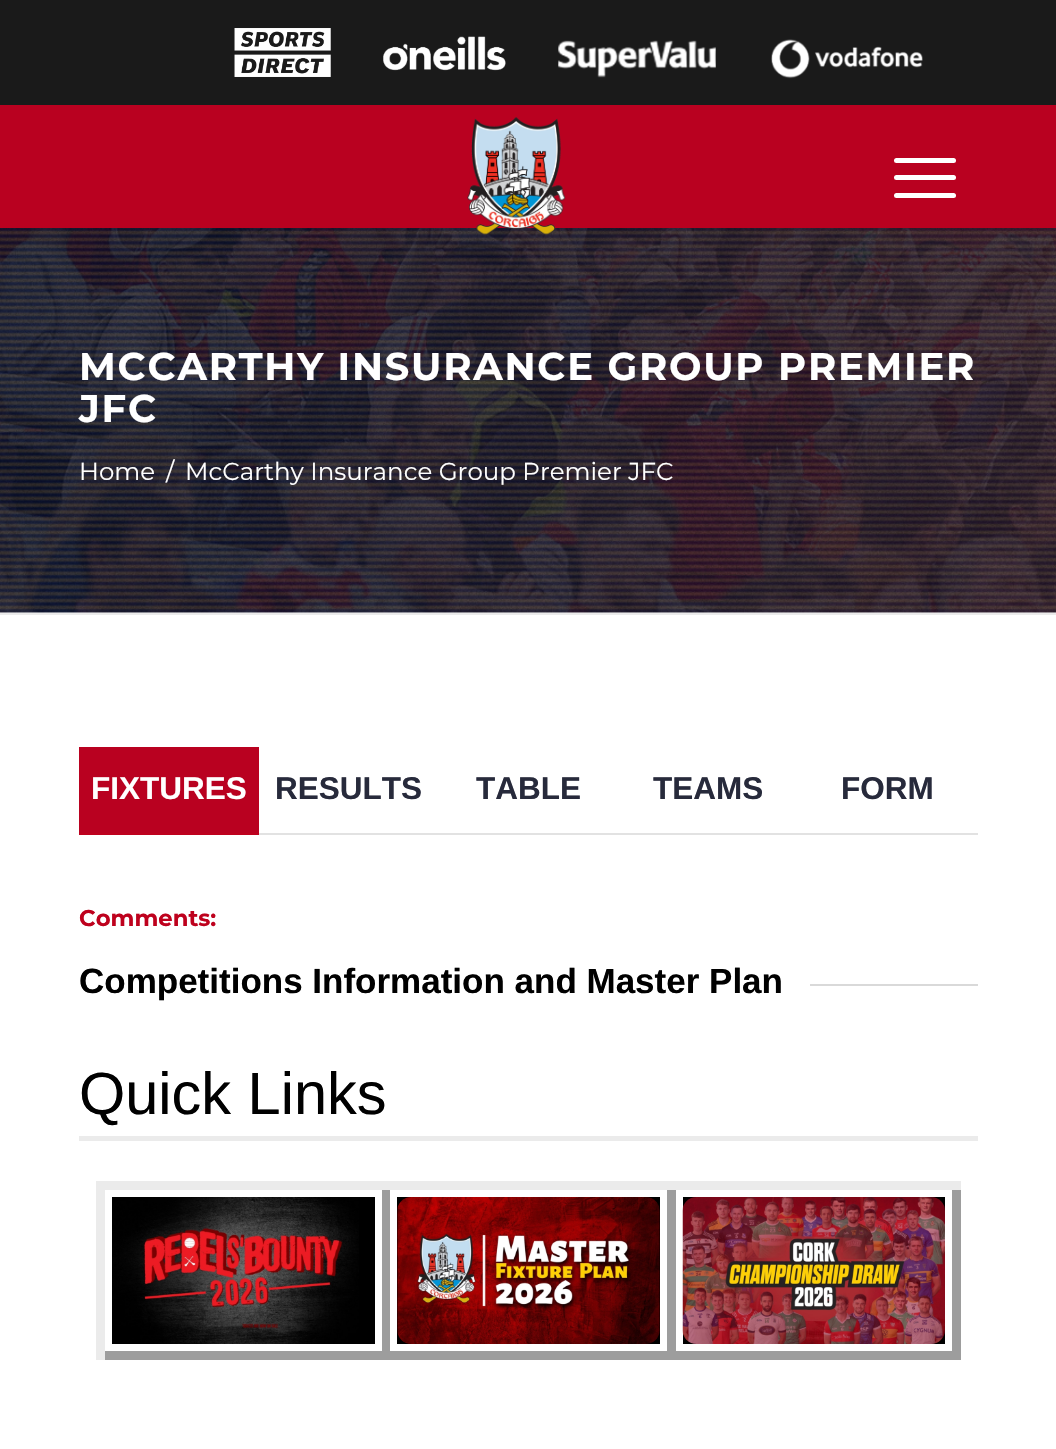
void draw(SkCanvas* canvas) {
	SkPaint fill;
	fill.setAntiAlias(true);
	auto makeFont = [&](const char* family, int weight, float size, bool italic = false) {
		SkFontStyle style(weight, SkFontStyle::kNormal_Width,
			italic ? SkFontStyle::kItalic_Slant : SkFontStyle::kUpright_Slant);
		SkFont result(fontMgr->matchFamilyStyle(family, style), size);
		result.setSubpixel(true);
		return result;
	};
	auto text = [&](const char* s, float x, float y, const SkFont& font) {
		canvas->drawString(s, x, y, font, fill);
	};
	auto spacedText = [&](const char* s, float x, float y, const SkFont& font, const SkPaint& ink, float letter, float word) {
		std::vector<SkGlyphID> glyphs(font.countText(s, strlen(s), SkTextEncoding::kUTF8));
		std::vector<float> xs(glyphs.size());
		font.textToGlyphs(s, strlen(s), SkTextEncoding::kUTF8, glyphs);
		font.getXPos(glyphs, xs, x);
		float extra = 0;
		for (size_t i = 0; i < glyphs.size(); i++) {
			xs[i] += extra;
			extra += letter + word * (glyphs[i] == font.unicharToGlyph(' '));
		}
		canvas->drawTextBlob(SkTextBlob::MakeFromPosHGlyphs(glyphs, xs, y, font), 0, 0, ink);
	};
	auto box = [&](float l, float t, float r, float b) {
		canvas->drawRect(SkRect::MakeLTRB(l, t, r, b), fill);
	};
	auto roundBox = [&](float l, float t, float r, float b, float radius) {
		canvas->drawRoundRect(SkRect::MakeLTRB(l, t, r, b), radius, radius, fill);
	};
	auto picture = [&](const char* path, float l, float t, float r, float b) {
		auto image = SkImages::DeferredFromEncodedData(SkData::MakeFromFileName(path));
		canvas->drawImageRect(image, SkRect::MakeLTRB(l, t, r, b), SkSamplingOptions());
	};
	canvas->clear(0xFFFFFFFF);
	fill.setColor(0xFFB90120);
	box(0, 105, 1056, 228);
	fill.setColor(0xFF1A1A1A);
	box(0, 0, 1056, 105);
	picture("image0.png", 234, 28, 331, 77);
	picture("image1.png", 383, 36, 506, 71);
	picture("image2.png", 558, 40, 716, 78);
	picture("image3.png", 771, 39, 923, 79);
	picture("image5.png", 0, 228, 1056, 613);
	picture("image4.png", 467, 117, 566, 235);
	fill.setColor(0xFFFFFFFF);
	roundBox(894, 175, 956, 180, 2.5f);
	roundBox(894, 158, 956, 163, 2.5f);
	roundBox(894, 193, 956, 198, 2.5f);
	fill.setColor(0xFFEBEBEB);
	box(0, 613, 1056, 615);
	fill.setColor(0xFFB90120);
	box(79, 747, 259, 833);
	fill.setColor(0xFFBE011D);
	box(79, 833, 259, 835);
	fill.setColor(0xFFE2E2E2);
	box(259, 833, 978, 835);
	fill.setColor(0xFFD9D9D9);
	box(810, 984, 978, 986);
	fill.setColor(0xFFEBEBEB);
	box(79, 1136, 978, 1141);
	box(105, 1181, 961, 1190);
	box(96, 1181, 105, 1360);
	fill.setColor(0xFF9D9D9D);
	box(382, 1190, 390, 1351);
	box(105, 1351, 961, 1360);
	fill.setColor(0xFF000000);
	box(112, 1197, 375, 1344);
	picture("image6.png", 112, 1197, 359, 1344);
	fill.setColor(0xFF9D9D9D);
	box(667, 1190, 676, 1351);
	fill.setColor(0xFF000000);
	box(397, 1197, 660, 1344);
	picture("image7.png", 397, 1197, 660, 1344);
	fill.setColor(0xFF9D9D9D);
	box(952, 1190, 961, 1351);
	fill.setColor(0xFF000000);
	box(683, 1197, 945, 1344);
	picture("image8.png", 682, 1197, 945, 1344);
	auto font1 = makeFont("Montserrat", 700, 38.5f);
	fill.setColor(0xFFFFFFFF);
	spacedText("MCCARTHY INSURANCE GROUP PREMIER", 79, 380, font1, fill, 1.75f, 0);
	spacedText("JFC", 79, 422, font1, fill, 1.75f, 0);
	auto font2 = makeFont("Montserrat", 400, 24.5f);
	text("Home", 79, 480, font2);
	text("/", 166, 480, font2);
	text("McCarthy Insurance Group Premier JFC", 185, 480, font2);
	auto font3 = makeFont("Liberation Sans", 700, 31.5f);
	text("FIXTURES", 91, 799, font3);
	fill.setColor(0xFF272A3B);
	text("RESULTS", 275, 799, font3);
	text("TABLE", 476, 799, font3);
	text("TEAMS", 653, 799, font3);
	text("FORM", 841, 799, font3);
	auto font4 = makeFont("Montserrat", 700, 22.75f);
	fill.setColor(0xFFBE011D);
	text("Comments:", 79, 926, font4);
	auto font5 = makeFont("Liberation Sans", 700, 35);
	fill.setColor(0xFF000000);
	text("Competitions Information and Master Plan", 79, 993, font5);
	auto font6 = makeFont("Liberation Sans", 400, 59.5f);
	text("Quick Links", 79, 1114, font6);
}
